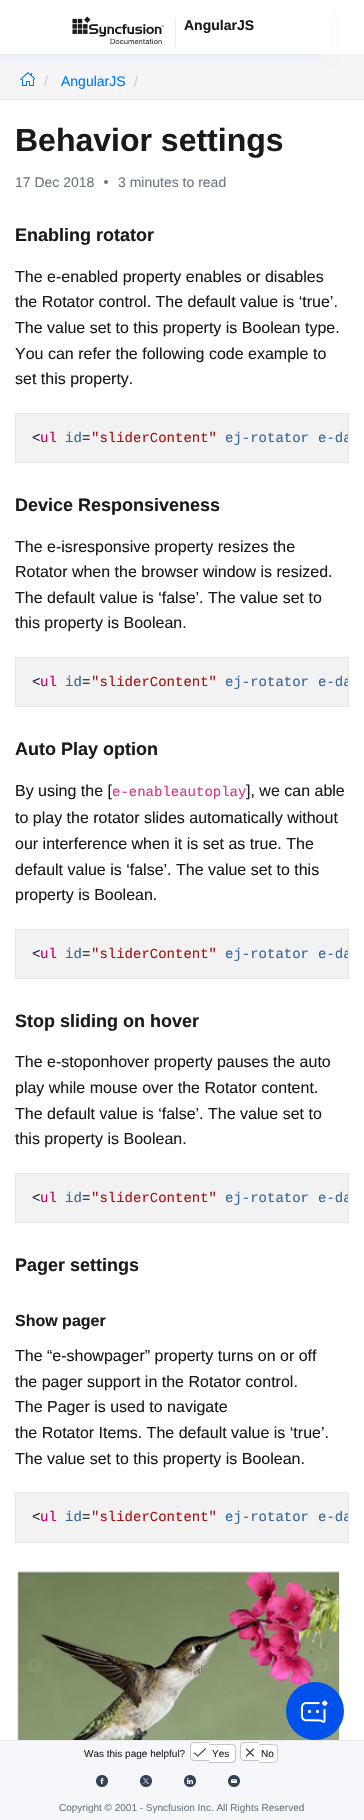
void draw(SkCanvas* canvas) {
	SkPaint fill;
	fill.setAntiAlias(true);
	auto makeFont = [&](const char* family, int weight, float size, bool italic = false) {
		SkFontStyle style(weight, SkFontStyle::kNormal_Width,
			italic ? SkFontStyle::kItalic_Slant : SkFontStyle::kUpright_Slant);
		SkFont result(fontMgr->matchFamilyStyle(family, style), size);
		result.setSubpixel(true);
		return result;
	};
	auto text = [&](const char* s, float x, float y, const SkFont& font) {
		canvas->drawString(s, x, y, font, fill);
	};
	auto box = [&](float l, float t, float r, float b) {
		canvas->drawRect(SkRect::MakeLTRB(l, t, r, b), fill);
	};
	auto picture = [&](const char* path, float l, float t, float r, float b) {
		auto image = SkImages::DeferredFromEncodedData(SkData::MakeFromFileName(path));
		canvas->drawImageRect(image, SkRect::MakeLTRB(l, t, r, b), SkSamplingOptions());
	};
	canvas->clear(0xFFFFFFFF);
	fill.setColor(0xFFF5F5F7);
	box(0, 54, 364, 99);
	picture("image1.png", 20, 72, 35, 86);
	canvas->save();
	canvas->clipPath(SkPathBuilder(SkPathFillType::kEvenOdd).moveTo(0, 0).lineTo(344, 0).lineTo(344, 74).lineTo(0, 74).close().moveTo(-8, 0).lineTo(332, 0).lineTo(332, 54).lineTo(-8, 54).close().detach(), true);
	fill.setColor(0xFFE2EAF5);
	fill.setMaskFilter(SkMaskFilter::MakeBlur(kNormal_SkBlurStyle, 5.5f));
	canvas->drawRect(SkRect::MakeLTRB(-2, 14, 326, 56), fill);
	fill.setMaskFilter(nullptr);
	canvas->restore();
	picture("image0.png", 72, 16, 176, 46);
	fill.setColor(0xFFE7E7E7);
	box(0, 99, 364, 100);
	fill.setColor(0xFF6C7786);
	canvas->drawCircle(106, 182, 2, fill);
	fill.setColor(0xFFF2F2F2);
	canvas->drawRect(SkRect::MakeLTRB(15.5f, 413.5f, 348.5f, 462.5f), fill);
	fill.setStyle(SkPaint::kStroke_Style);
	fill.setStrokeWidth(1);
	fill.setColor(0xFFE8E8E8);
	canvas->drawRect(SkRect::MakeLTRB(15.5f, 413.5f, 348.5f, 462.5f), fill);
	fill.setStyle(SkPaint::kFill_Style);
	fill.setColor(0xFFF2F2F2);
	canvas->drawRect(SkRect::MakeLTRB(15.5f, 657.5f, 348.5f, 706.5f), fill);
	fill.setStyle(SkPaint::kStroke_Style);
	fill.setColor(0xFFE8E8E8);
	canvas->drawRect(SkRect::MakeLTRB(15.5f, 657.5f, 348.5f, 706.5f), fill);
	fill.setStyle(SkPaint::kFill_Style);
	fill.setColor(0xFFF2F2F2);
	canvas->drawRect(SkRect::MakeLTRB(15.5f, 929.5f, 348.5f, 978.5f), fill);
	fill.setStyle(SkPaint::kStroke_Style);
	fill.setColor(0xFFE8E8E8);
	canvas->drawRect(SkRect::MakeLTRB(15.5f, 929.5f, 348.5f, 978.5f), fill);
	fill.setStyle(SkPaint::kFill_Style);
	fill.setColor(0xFFF2F2F2);
	canvas->drawRect(SkRect::MakeLTRB(15.5f, 1173.5f, 348.5f, 1222.5f), fill);
	fill.setStyle(SkPaint::kStroke_Style);
	fill.setColor(0xFFE8E8E8);
	canvas->drawRect(SkRect::MakeLTRB(15.5f, 1173.5f, 348.5f, 1222.5f), fill);
	fill.setStyle(SkPaint::kFill_Style);
	fill.setColor(0xFFF2F2F2);
	canvas->drawRect(SkRect::MakeLTRB(15.5f, 1492.5f, 348.5f, 1542.5f), fill);
	fill.setStyle(SkPaint::kStroke_Style);
	fill.setColor(0xFFE8E8E8);
	canvas->drawRect(SkRect::MakeLTRB(15.5f, 1492.5f, 348.5f, 1542.5f), fill);
	picture("image2.png", 17, 1571, 340, 1740);
	fill.setStyle(SkPaint::kFill_Style);
	fill.setColor(0xFF0050EB);
	canvas->drawCircle(315, 1711, 29, fill);
	picture("image3.png", 301, 1700, 328, 1723);
	fill.setColor(0xFFF5F7FA);
	box(0, 1741, 364, 1820);
	fill.setColor(0xFFEAEAEA);
	box(0, 1740, 364, 1741);
	fill.setColor(0xFFFFFFFF);
	canvas->drawPath(SkPathBuilder().moveTo(194, 1742).lineTo(209, 1742).lineTo(209, 1761).lineTo(194, 1761).cubicTo(192, 1761, 190, 1759, 190, 1757).lineTo(190, 1746).cubicTo(190, 1744, 192, 1742, 194, 1742).close().detach(), fill);
	fill.setColor(0xFFC5C5C5);
	canvas->drawPath(SkPathBuilder(SkPathFillType::kEvenOdd).moveTo(194, 1742).lineTo(209, 1742).lineTo(209, 1761).lineTo(194, 1761).cubicTo(192, 1761, 190, 1759, 190, 1757).lineTo(190, 1746).cubicTo(190, 1744, 192, 1742, 194, 1742).close().moveTo(194, 1743).lineTo(209, 1743).lineTo(209, 1760).lineTo(194, 1760).cubicTo(192.5f, 1760, 191, 1758.5f, 191, 1757).lineTo(191, 1746).cubicTo(191, 1744.5f, 192.5f, 1743, 194, 1743).close().detach(), fill);
	fill.setColor(0xFFFFFFFF);
	canvas->drawPath(SkPathBuilder().moveTo(209, 1744).lineTo(232, 1744).cubicTo(234, 1744, 236, 1746, 236, 1748).lineTo(236, 1759).cubicTo(236, 1761, 234, 1763, 232, 1763).lineTo(209, 1763).close().detach(), fill);
	fill.setColor(0xFFC5C5C5);
	canvas->drawPath(SkPathBuilder(SkPathFillType::kEvenOdd).moveTo(209, 1744).lineTo(228, 1744).cubicTo(237, 1744, 236, 1745.5f, 236, 1753.5f).cubicTo(236, 1761.5f, 237, 1763, 228, 1763).lineTo(209, 1763).close().moveTo(209, 1745).lineTo(228, 1745).cubicTo(236, 1745, 235, 1746, 235, 1753.5f).cubicTo(235, 1761, 236, 1762, 228, 1762).lineTo(209, 1762).close().detach(), fill);
	picture("image4.png", 194, 1748, 206, 1757);
	fill.setColor(0xFFFFFFFF);
	canvas->drawPath(SkPathBuilder().moveTo(244, 1742).lineTo(259, 1742).lineTo(259, 1761).lineTo(244, 1761).cubicTo(242, 1761, 240, 1759, 240, 1757).lineTo(240, 1746).cubicTo(240, 1744, 242, 1742, 244, 1742).close().detach(), fill);
	fill.setColor(0xFFC5C5C5);
	canvas->drawPath(SkPathBuilder(SkPathFillType::kEvenOdd).moveTo(244, 1742).lineTo(259, 1742).lineTo(259, 1761).lineTo(244, 1761).cubicTo(242, 1761, 240, 1759, 240, 1757).lineTo(240, 1746).cubicTo(240, 1744, 242, 1742, 244, 1742).close().moveTo(244, 1743).lineTo(259, 1743).lineTo(259, 1760).lineTo(244, 1760).cubicTo(242.5f, 1760, 241, 1758.5f, 241, 1757).lineTo(241, 1746).cubicTo(241, 1744.5f, 242.5f, 1743, 244, 1743).close().detach(), fill);
	fill.setColor(0xFFFFFFFF);
	canvas->drawPath(SkPathBuilder().moveTo(259, 1744).lineTo(274, 1744).cubicTo(276, 1744, 278, 1746, 278, 1748).lineTo(278, 1759).cubicTo(278, 1761, 276, 1763, 274, 1763).lineTo(259, 1763).close().detach(), fill);
	fill.setColor(0xFFC5C5C5);
	canvas->drawPath(SkPathBuilder(SkPathFillType::kEvenOdd).moveTo(259, 1744).lineTo(271.5f, 1744).cubicTo(279, 1744, 278, 1747, 278, 1753.5f).cubicTo(278, 1760, 279, 1763, 271.5f, 1763).lineTo(259, 1763).close().moveTo(259, 1745).lineTo(271.5f, 1745).cubicTo(278.5f, 1745, 277, 1747.5f, 277, 1753.5f).cubicTo(277, 1759.5f, 278.5f, 1762, 271.5f, 1762).lineTo(259, 1762).close().detach(), fill);
	picture("image5.png", 246, 1748, 254, 1757);
	picture("image6.png", 96, 1775, 108, 1787);
	picture("image7.png", 140, 1775, 152, 1787);
	picture("image8.png", 184, 1775, 196, 1787);
	picture("image9.png", 228, 1775, 240, 1787);
	auto font1 = makeFont("Liberation Sans", 700, 14);
	fill.setColor(0xFF1A1A1A);
	text("AngularJS", 184, 30, font1);
	auto font2 = makeFont("Liberation Sans", 400, 14);
	fill.setColor(0xFFCCCCCC);
	text("/", 44, 86, font2);
	fill.setColor(0xFF0079F3);
	text("AngularJS", 61, 86, font2);
	fill.setColor(0xFFCCCCCC);
	text("/", 134, 86, font2);
	auto font3 = makeFont("Liberation Sans", 700, 32);
	fill.setColor(0xFF1A1A1A);
	text("Behavior settings", 15, 151, font3);
	fill.setColor(0xFF6C7786);
	text("17 Dec 2018", 15, 187, font2);
	text("3 minutes to read", 118, 187, font2);
	auto font4 = makeFont("Liberation Sans", 700, 18);
	fill.setColor(0xFF1A1A1A);
	text("Enabling rotator", 15, 241, font4);
	auto font5 = makeFont("Liberation Sans", 400, 16);
	text("The e-enabled property enables or disables", 15, 282, font5);
	text("the Rotator control. The default value is ‘true’.", 15, 307, font5);
	text("The value set to this property is Boolean type.", 15, 333, font5);
	text("You can refer the following code example to", 15, 359, font5);
	text("set this property.", 15, 384, font5);
	auto font6 = makeFont("Liberation Mono", 400, 14);
	text("<", 32, 442, font6);
	fill.setColor(0xFFBB0066);
	text("ul", 40, 442, font6);
	fill.setColor(0xFF336699);
	text("id", 65, 442, font6);
	fill.setColor(0xFF1A1A1A);
	text("=", 82, 442, font6);
	fill.setColor(0xFFA31515);
	text("\"sliderContent\"", 91, 442, font6);
	fill.setColor(0xFF336699);
	text("ej-rotator", 225, 442, font6);
	canvas->save();
	canvas->clipRect(SkRect::MakeLTRB(16, 414, 348, 462));
	text("e-da", 318, 442, font6);
	canvas->restore();
	fill.setColor(0xFF1A1A1A);
	text("Device Responsiveness", 15, 511, font4);
	text("The e-isresponsive property resizes the", 15, 552, font5);
	text("Rotator when the browser window is resized.", 15, 577, font5);
	text("The default value is ‘false’. The value set to", 15, 603, font5);
	text("this property is Boolean.", 15, 628, font5);
	text("<", 32, 686, font6);
	fill.setColor(0xFFBB0066);
	text("ul", 40, 686, font6);
	fill.setColor(0xFF336699);
	text("id", 65, 686, font6);
	fill.setColor(0xFF1A1A1A);
	text("=", 82, 686, font6);
	fill.setColor(0xFFA31515);
	text("\"sliderContent\"", 91, 686, font6);
	fill.setColor(0xFF336699);
	text("ej-rotator", 225, 686, font6);
	canvas->save();
	canvas->clipRect(SkRect::MakeLTRB(16, 658, 348, 706));
	text("e-da", 318, 686, font6);
	canvas->restore();
	fill.setColor(0xFF1A1A1A);
	text("Auto Play option", 15, 755, font4);
	text("By using the [", 15, 796, font5);
	fill.setColor(0xFFD63384);
	text("e-enableautoplay", 112, 796, font6);
	fill.setColor(0xFF1A1A1A);
	text("], we can able", 246, 796, font5);
	text("to play the rotator slides automatically without", 15, 823, font5);
	text("our interference when it is set as true. The", 15, 849, font5);
	text("default value is ‘false’. The value set to this", 15, 875, font5);
	text("property is Boolean.", 15, 900, font5);
	text("<", 32, 958, font6);
	fill.setColor(0xFFBB0066);
	text("ul", 40, 958, font6);
	fill.setColor(0xFF336699);
	text("id", 65, 958, font6);
	fill.setColor(0xFF1A1A1A);
	text("=", 82, 958, font6);
	fill.setColor(0xFFA31515);
	text("\"sliderContent\"", 91, 958, font6);
	fill.setColor(0xFF336699);
	text("ej-rotator", 225, 958, font6);
	canvas->save();
	canvas->clipRect(SkRect::MakeLTRB(16, 930, 348, 978));
	text("e-da", 318, 958, font6);
	canvas->restore();
	fill.setColor(0xFF1A1A1A);
	text("Stop sliding on hover", 15, 1027, font4);
	text("The e-stoponhover property pauses the auto", 15, 1067, font5);
	text("play while mouse over the Rotator content.", 15, 1093, font5);
	text("The default value is ‘false’. The value set to", 15, 1119, font5);
	text("this property is Boolean.", 15, 1144, font5);
	text("<", 32, 1202, font6);
	fill.setColor(0xFFBB0066);
	text("ul", 40, 1202, font6);
	fill.setColor(0xFF336699);
	text("id", 65, 1202, font6);
	fill.setColor(0xFF1A1A1A);
	text("=", 82, 1202, font6);
	fill.setColor(0xFFA31515);
	text("\"sliderContent\"", 91, 1202, font6);
	fill.setColor(0xFF336699);
	text("ej-rotator", 225, 1202, font6);
	canvas->save();
	canvas->clipRect(SkRect::MakeLTRB(16, 1174, 348, 1222));
	text("e-da", 318, 1202, font6);
	canvas->restore();
	fill.setColor(0xFF1A1A1A);
	text("Pager settings", 15, 1271, font4);
	auto font7 = makeFont("Liberation Sans", 700, 16);
	text("Show pager", 15, 1326, font7);
	text("The “e-showpager” property turns on or off", 15, 1361, font5);
	text("the pager support in the Rotator control.", 15, 1387, font5);
	text("The Pager is used to navigate", 15, 1412, font5);
	text("the Rotator Items. The default value is ‘true’.", 15, 1438, font5);
	text("The value set to this property is Boolean.", 15, 1464, font5);
	text("<", 32, 1521, font6);
	fill.setColor(0xFFBB0066);
	text("ul", 40, 1521, font6);
	fill.setColor(0xFF336699);
	text("id", 65, 1521, font6);
	fill.setColor(0xFF1A1A1A);
	text("=", 82, 1521, font6);
	fill.setColor(0xFFA31515);
	text("\"sliderContent\"", 91, 1521, font6);
	fill.setColor(0xFF336699);
	text("ej-rotator", 225, 1521, font6);
	canvas->save();
	canvas->clipRect(SkRect::MakeLTRB(16, 1493, 348, 1542));
	text("e-da", 318, 1521, font6);
	canvas->restore();
	auto font8 = makeFont("Liberation Sans", 400, 10);
	fill.setColor(0xFF22252A);
	text("Was this page helpful?", 84, 1757, font8);
	text("Yes", 212, 1757, font8);
	text("No", 261, 1757, font8);
	fill.setColor(0xFF6C7786);
	text("Copyright © 2001 - Syncfusion Inc. All Rights Reserved", 59, 1811, font8);
}
